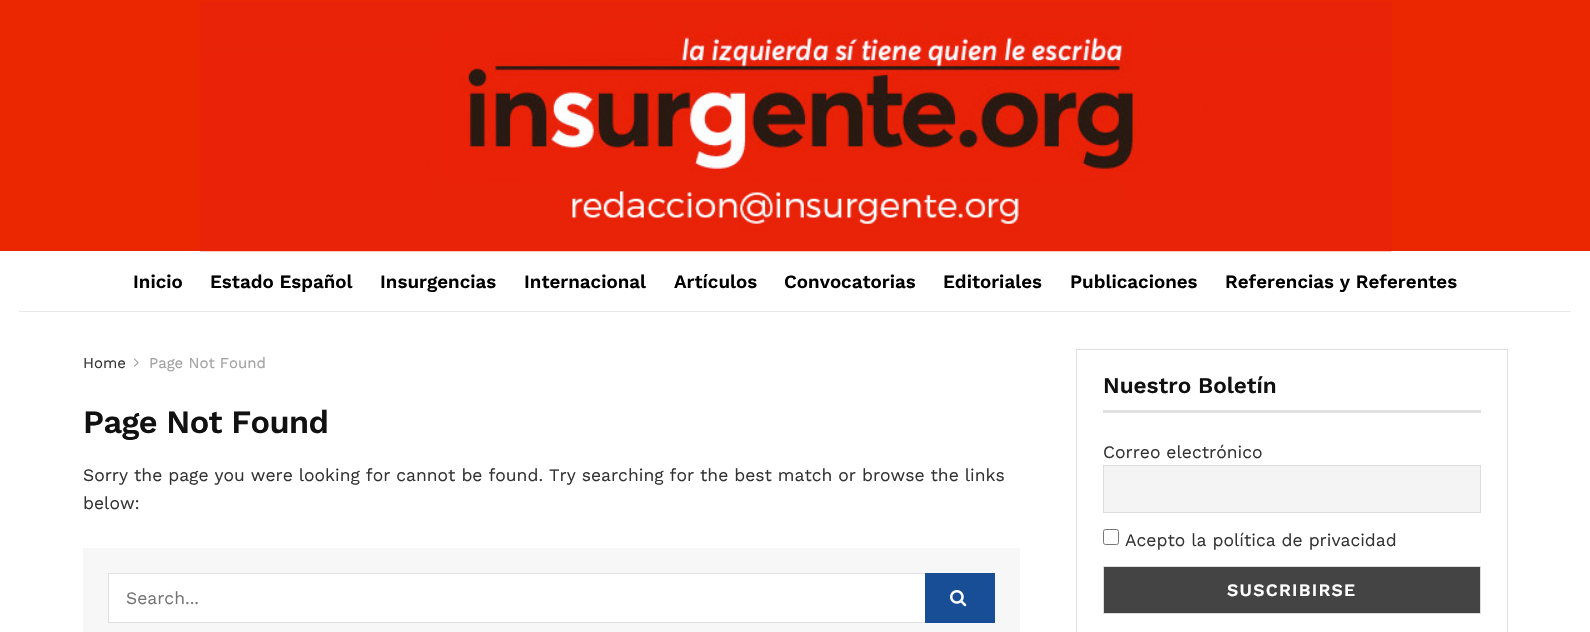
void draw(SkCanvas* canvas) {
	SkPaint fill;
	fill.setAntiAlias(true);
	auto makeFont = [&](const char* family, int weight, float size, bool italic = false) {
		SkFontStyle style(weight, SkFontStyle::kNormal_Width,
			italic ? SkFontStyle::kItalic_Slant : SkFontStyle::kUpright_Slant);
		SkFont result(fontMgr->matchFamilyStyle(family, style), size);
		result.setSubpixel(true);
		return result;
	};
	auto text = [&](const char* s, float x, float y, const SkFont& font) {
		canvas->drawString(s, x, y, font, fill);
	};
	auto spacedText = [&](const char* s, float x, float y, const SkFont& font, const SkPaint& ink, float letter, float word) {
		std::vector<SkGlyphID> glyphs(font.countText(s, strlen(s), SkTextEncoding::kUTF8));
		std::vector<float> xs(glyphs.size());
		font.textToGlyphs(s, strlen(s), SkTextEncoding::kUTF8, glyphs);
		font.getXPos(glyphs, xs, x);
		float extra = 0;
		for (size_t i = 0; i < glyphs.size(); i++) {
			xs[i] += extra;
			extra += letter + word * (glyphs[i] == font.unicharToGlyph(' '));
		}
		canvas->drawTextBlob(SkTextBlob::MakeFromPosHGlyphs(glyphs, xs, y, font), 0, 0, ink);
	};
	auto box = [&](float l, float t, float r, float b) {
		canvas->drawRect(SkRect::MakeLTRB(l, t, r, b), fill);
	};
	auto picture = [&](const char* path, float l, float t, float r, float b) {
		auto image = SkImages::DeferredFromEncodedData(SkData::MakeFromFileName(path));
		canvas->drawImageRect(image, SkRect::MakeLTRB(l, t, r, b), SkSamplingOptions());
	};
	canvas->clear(0xFFFFFFFF);
	fill.setColor(0xFFEA2700);
	box(0, 0, 1590, 251);
	picture("image0.png", 200, 1, 1392, 252);
	fill.setColor(0xFFE8E8E8);
	box(19, 311, 1571, 312);
	picture("image1.png", 134, 358, 139, 367);
	fill.setColor(0xFFF7F7F7);
	box(83, 548, 1020, 632);
	fill.setColor(0xFFFFFFFF);
	box(109, 574, 925, 622);
	fill.setStyle(SkPaint::kStroke_Style);
	fill.setStrokeWidth(1);
	fill.setColor(0xFFE0E0E0);
	canvas->drawRect(SkRect::MakeLTRB(108.5f, 573.5f, 994.5f, 622.5f), fill);
	fill.setStyle(SkPaint::kFill_Style);
	fill.setColor(0xFF174E96);
	box(925, 573, 995, 623);
	picture("image2.png", 950, 590, 967, 607);
	fill.setStyle(SkPaint::kStroke_Style);
	fill.setColor(0xFFE0E0E0);
	canvas->drawRect(SkRect::MakeLTRB(1076.5f, 349.5f, 1507.5f, 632.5f), fill);
	fill.setStyle(SkPaint::kFill_Style);
	box(1103, 410, 1481, 413);
	fill.setColor(0xFFF4F4F4);
	canvas->drawRect(SkRect::MakeLTRB(1103.5f, 465.5f, 1480.5f, 512.5f), fill);
	fill.setStyle(SkPaint::kStroke_Style);
	fill.setColor(0xFFDDDDDD);
	canvas->drawRect(SkRect::MakeLTRB(1103.5f, 465.5f, 1480.5f, 512.5f), fill);
	fill.setColor(0xFF767676);
	canvas->drawRoundRect(SkRect::MakeLTRB(1103.5f, 529.5f, 1118.5f, 544.5f), 2, 2, fill);
	fill.setStyle(SkPaint::kFill_Style);
	fill.setColor(0xFF444444);
	canvas->drawRect(SkRect::MakeLTRB(1103.5f, 566.5f, 1480.5f, 613.5f), fill);
	fill.setStyle(SkPaint::kStroke_Style);
	fill.setColor(0xFFDDDDDD);
	canvas->drawRect(SkRect::MakeLTRB(1103.5f, 566.5f, 1480.5f, 613.5f), fill);
	auto font1 = makeFont("Work Sans", 600, 18.75f);
	fill.setStyle(SkPaint::kFill_Style);
	fill.setColor(0xFF000000);
	text("Inicio", 133, 288, font1);
	text("Estado Español", 210, 288, font1);
	text("Insurgencias", 380, 288, font1);
	text("Internacional", 524, 288, font1);
	text("Artículos", 674, 288, font1);
	text("Convocatorias", 784, 288, font1);
	text("Editoriales", 943, 288, font1);
	text("Publicaciones", 1070, 288, font1);
	text("Referencias y Referentes", 1225, 288, font1);
	auto font2 = makeFont("Work Sans", 400, 15);
	fill.setColor(0xFF333333);
	text("Home", 83, 368, font2);
	fill.setColor(0xFFA0A0A0);
	text("Page Not Found", 149, 368, font2);
	auto font3 = makeFont("Work Sans", 600, 32.5f);
	fill.setColor(0xFF111111);
	spacedText("Page Not Found", 83, 433, font3, fill, -0.6f, 0);
	auto font4 = makeFont("Work Sans", 400, 17.5f);
	fill.setColor(0xFF333333);
	text("Sorry the page you were looking for cannot be found. Try searching for the best match or browse the links", 83, 481, font4);
	text("below:", 83, 509, font4);
	fill.setColor(0xFF757575);
	text("Search...", 126, 604, font4);
	auto font5 = makeFont("Work Sans", 600, 22.5f);
	fill.setColor(0xFF111111);
	text("Nuestro Boletín", 1103, 393, font5);
	fill.setColor(0xFF333333);
	text("Correo electrónico", 1103, 458, font4);
	text("Acepto la política de privacidad", 1125, 546, font4);
	auto font6 = makeFont("Work Sans", 600, 17.5f);
	fill.setColor(0xFFFFFFFF);
	spacedText("SUSCRIBIRSE", 1227, 596, font6, fill, 1.25f, 0);
}
